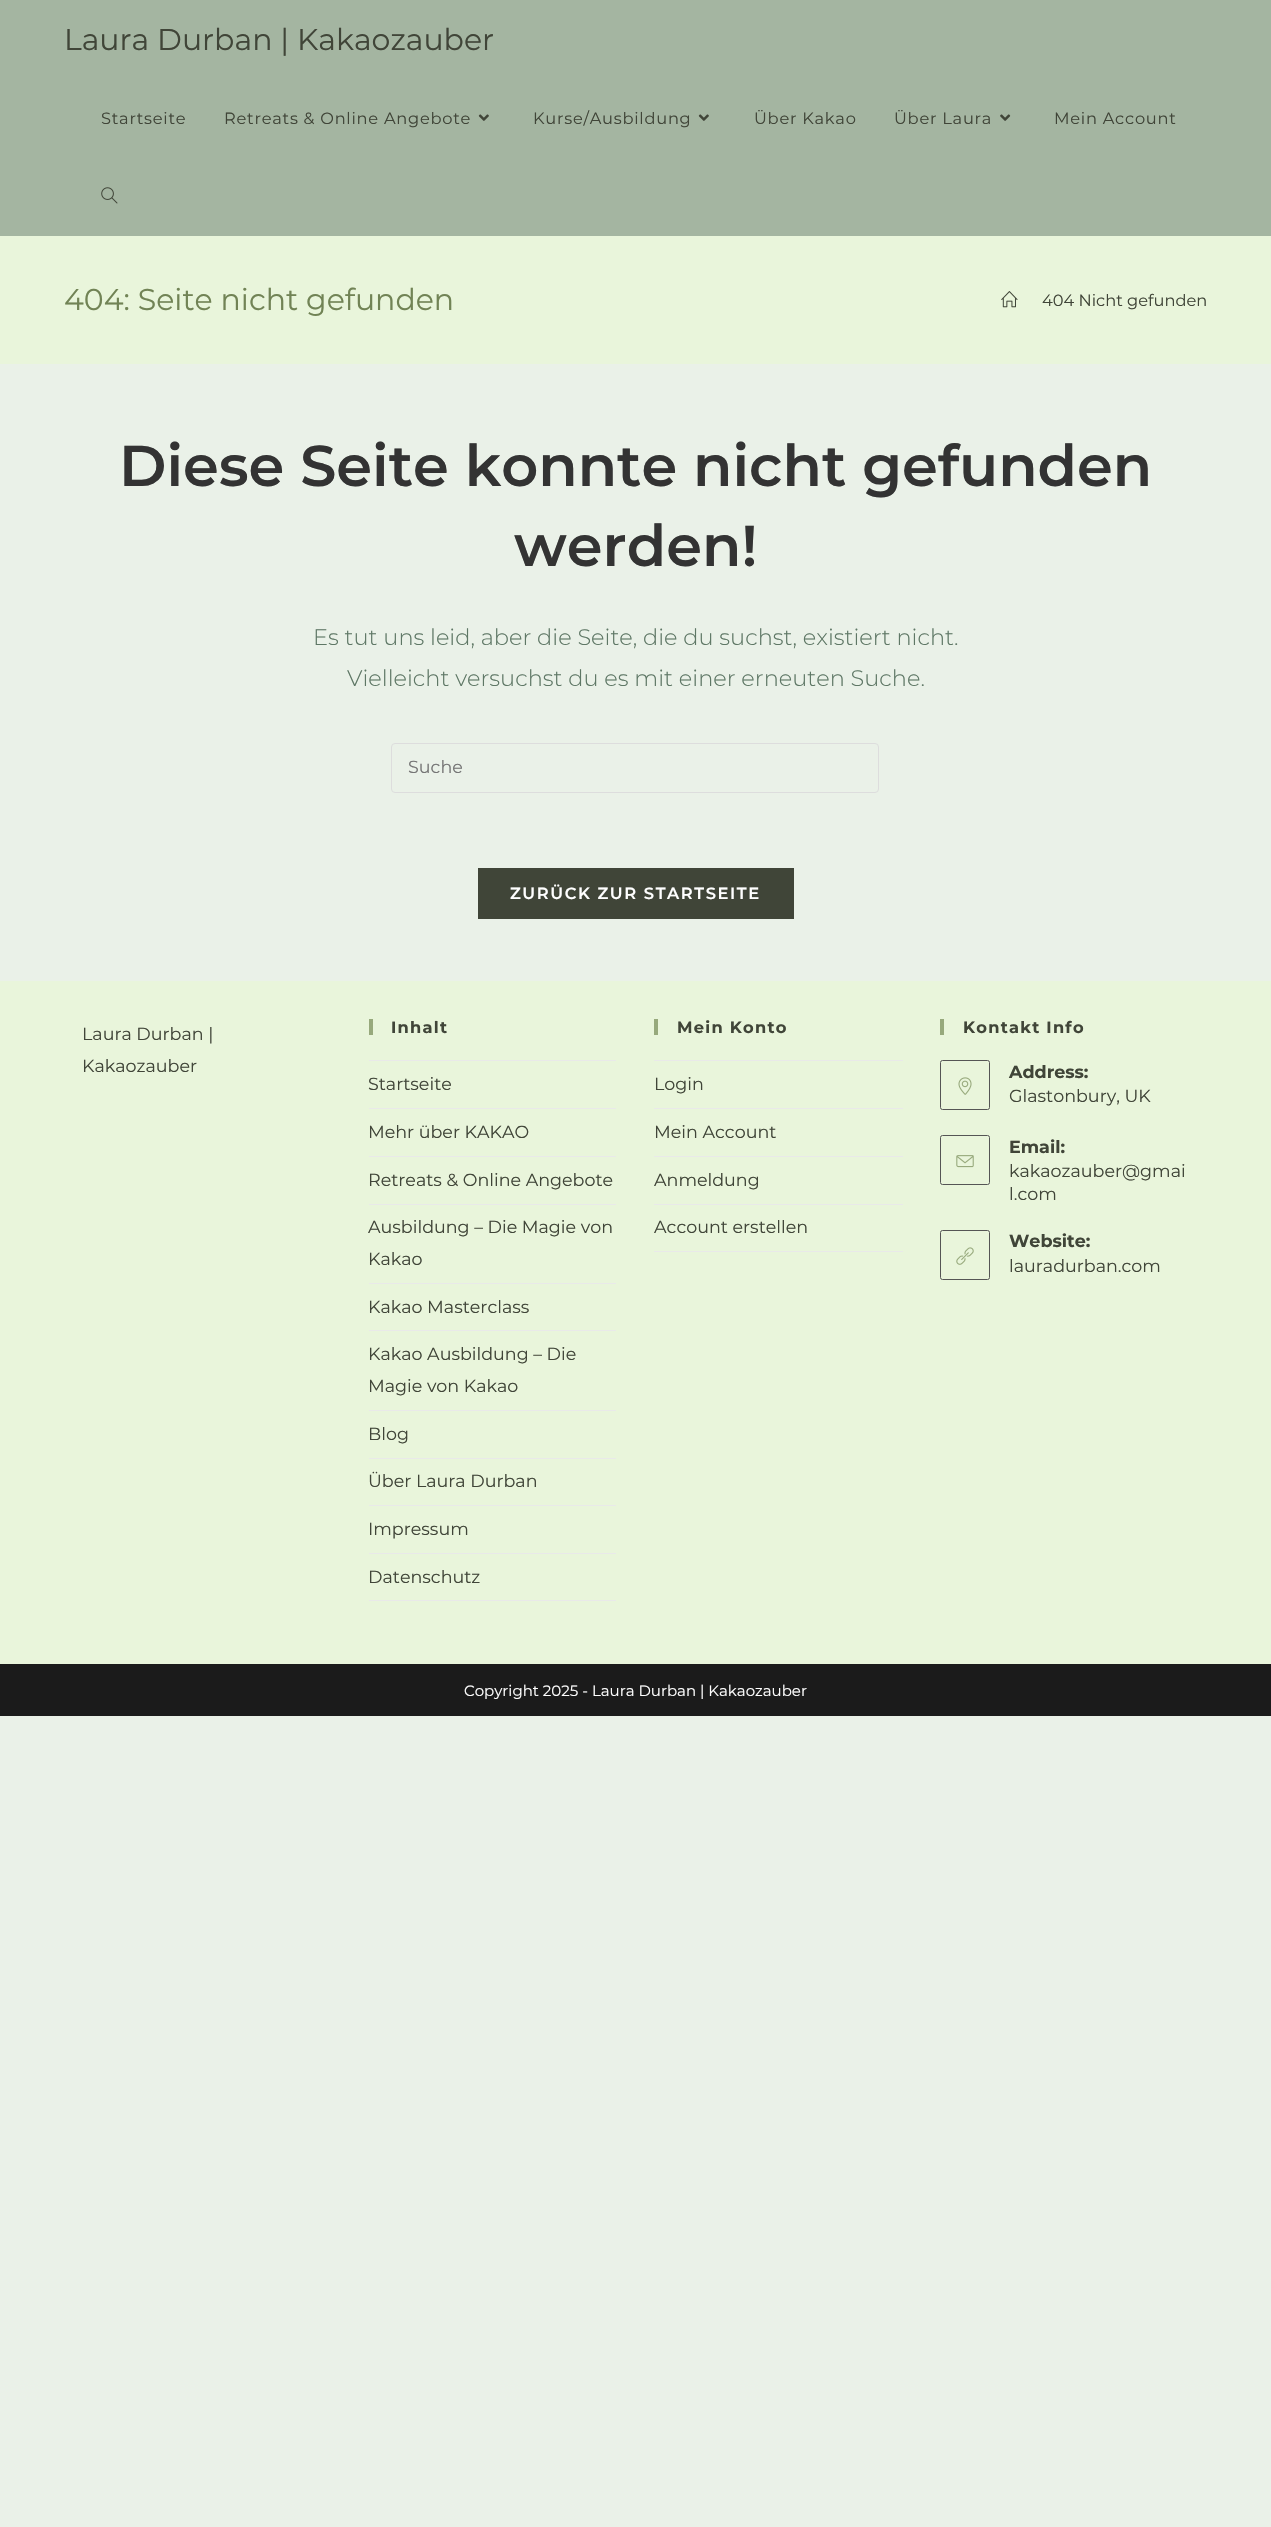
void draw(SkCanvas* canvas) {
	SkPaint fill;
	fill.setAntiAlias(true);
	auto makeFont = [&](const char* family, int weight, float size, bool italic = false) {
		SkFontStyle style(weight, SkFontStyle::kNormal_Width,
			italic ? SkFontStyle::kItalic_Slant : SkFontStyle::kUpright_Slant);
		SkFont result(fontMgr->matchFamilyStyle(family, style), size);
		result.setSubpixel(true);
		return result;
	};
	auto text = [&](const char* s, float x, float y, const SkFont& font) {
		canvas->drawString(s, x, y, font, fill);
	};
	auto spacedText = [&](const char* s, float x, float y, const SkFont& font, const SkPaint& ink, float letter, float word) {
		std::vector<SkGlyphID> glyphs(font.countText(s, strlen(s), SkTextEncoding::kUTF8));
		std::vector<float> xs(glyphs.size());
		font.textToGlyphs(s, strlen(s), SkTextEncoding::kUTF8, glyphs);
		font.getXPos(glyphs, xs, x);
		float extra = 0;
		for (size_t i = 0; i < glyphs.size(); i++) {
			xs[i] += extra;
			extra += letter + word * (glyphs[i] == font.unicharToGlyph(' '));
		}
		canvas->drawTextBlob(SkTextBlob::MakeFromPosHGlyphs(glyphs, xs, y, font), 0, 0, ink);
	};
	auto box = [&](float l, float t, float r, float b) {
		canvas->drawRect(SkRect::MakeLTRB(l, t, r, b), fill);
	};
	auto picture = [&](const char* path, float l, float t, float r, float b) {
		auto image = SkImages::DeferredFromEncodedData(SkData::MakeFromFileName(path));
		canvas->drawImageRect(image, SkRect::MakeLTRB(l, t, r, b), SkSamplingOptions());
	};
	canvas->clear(0xFFEAF1E8);
	fill.setColor(0xFFA4B5A1);
	box(0, 0, 1271, 236);
	picture("image0.png", 478, 114, 489, 121);
	picture("image0.png", 698, 114, 709, 121);
	picture("image1.png", 1000, 114, 1011, 121);
	picture("image2.png", 101, 187, 118, 204);
	fill.setColor(0xFFE9F5DB);
	box(0, 236, 1271, 364);
	picture("image3.png", 1001, 291, 1018, 308);
	fill.setStyle(SkPaint::kStroke_Style);
	fill.setStrokeWidth(1);
	fill.setColor(0xFFDDDDDD);
	canvas->drawRoundRect(SkRect::MakeLTRB(391.5f, 743.5f, 878.5f, 792.5f), 3.5f, 3.5f, fill);
	fill.setStyle(SkPaint::kFill_Style);
	fill.setColor(0xFF404538);
	box(478, 868, 794, 919);
	fill.setColor(0xFFE9F5DB);
	box(0, 981, 1271, 1664);
	fill.setColor(0xFF97A97C);
	box(369, 1019, 373, 1035);
	fill.setColor(0xFFE9E9E9);
	box(369, 1060, 616, 1061);
	box(369, 1108, 616, 1109);
	box(369, 1156, 616, 1157);
	box(369, 1204, 616, 1205);
	box(369, 1283, 616, 1284);
	box(369, 1330, 616, 1331);
	box(369, 1410, 616, 1411);
	box(369, 1458, 616, 1459);
	box(369, 1505, 616, 1506);
	box(369, 1553, 616, 1554);
	box(369, 1600, 616, 1601);
	fill.setColor(0xFF97A97C);
	box(654, 1019, 658, 1035);
	fill.setColor(0xFFE9E9E9);
	box(654, 1060, 903, 1061);
	box(654, 1108, 903, 1109);
	box(654, 1156, 903, 1157);
	box(654, 1204, 903, 1205);
	box(654, 1251, 903, 1252);
	fill.setColor(0xFF97A97C);
	box(940, 1019, 944, 1035);
	fill.setStyle(SkPaint::kStroke_Style);
	fill.setColor(0xFF555555);
	canvas->drawRoundRect(SkRect::MakeLTRB(940.5f, 1060.5f, 989.5f, 1109.5f), 2, 2, fill);
	picture("image4.png", 958, 1077, 972, 1095);
	canvas->drawRoundRect(SkRect::MakeLTRB(940.5f, 1135.5f, 989.5f, 1184.5f), 2, 2, fill);
	picture("image5.png", 956, 1155, 974, 1168);
	canvas->drawRoundRect(SkRect::MakeLTRB(940.5f, 1230.5f, 989.5f, 1279.5f), 2, 2, fill);
	picture("image6.png", 956, 1247, 974, 1265);
	fill.setStyle(SkPaint::kFill_Style);
	fill.setColor(0xFF1B1B1B);
	box(0, 1664, 1271, 1716);
	auto font1 = makeFont("Montserrat", 400, 30);
	fill.setColor(0xFF404538);
	text("Laura Durban | Kakaozauber", 64, 50, font1);
	auto font2 = makeFont("Montserrat", 400, 16.25f);
	spacedText("Startseite", 101, 124, font2, fill, 0.75f, 0);
	spacedText("Retreats & Online Angebote", 224, 124, font2, fill, 0.75f, 0);
	spacedText("Kurse/Ausbildung", 533, 124, font2, fill, 0.75f, 0);
	spacedText("Über Kakao", 754, 124, font2, fill, 0.75f, 0);
	spacedText("Über Laura", 894, 124, font2, fill, 0.75f, 0);
	spacedText("Mein Account", 1054, 124, font2, fill, 0.75f, 0);
	fill.setColor(0xFF718355);
	text("404: Seite nicht gefunden", 64, 310, font1);
	fill.setColor(0xFF404538);
	text("404 Nicht gefunden", 1042, 306, font2);
	auto font3 = makeFont("Montserrat", 600, 57.5f);
	fill.setColor(0xFF333333);
	text("Diese Seite konnte nicht gefunden", 119, 486, font3);
	text("werden!", 514, 566, font3);
	auto font4 = makeFont("Montserrat", 300, 22.5f);
	fill.setColor(0xFF5E7765);
	text("Es tut uns leid, aber die Seite, die du suchst, existiert nicht.", 313, 645, font4);
	text("Vielleicht versuchst du es mit einer erneuten Suche.", 347, 686, font4);
	auto font5 = makeFont("Montserrat", 400, 17.5f);
	fill.setColor(0xFF757575);
	text("Suche", 408, 773, font5);
	auto font6 = makeFont("Montserrat", 600, 16.25f);
	fill.setColor(0xFFFFFFFF);
	spacedText("ZURÜCK ZUR STARTSEITE", 510, 899, font6, fill, 1.6f, 0);
	fill.setColor(0xFF404538);
	text("Laura Durban |", 82, 1040, font5);
	text("Kakaozauber", 82, 1072, font5);
	auto font7 = makeFont("Montserrat", 700, 16.25f);
	spacedText("Inhalt", 391, 1033, font7, fill, 1.25f, 0);
	text("Startseite", 368, 1090, font5);
	text("Mehr über KAKAO", 368, 1138, font5);
	text("Retreats & Online Angebote", 368, 1186, font5);
	text("Ausbildung – Die Magie von", 368, 1233, font5);
	text("Kakao", 368, 1265, font5);
	text("Kakao Masterclass", 368, 1313, font5);
	text("Kakao Ausbildung – Die", 368, 1360, font5);
	text("Magie von Kakao", 368, 1392, font5);
	text("Blog", 368, 1440, font5);
	text("Über Laura Durban", 368, 1487, font5);
	text("Impressum", 368, 1535, font5);
	text("Datenschutz", 368, 1583, font5);
	spacedText("Mein Konto", 677, 1033, font7, fill, 1.25f, 0);
	text("Login", 654, 1090, font5);
	text("Mein Account", 654, 1138, font5);
	text("Anmeldung", 654, 1186, font5);
	text("Account erstellen", 654, 1233, font5);
	spacedText("Kontakt Info", 963, 1033, font7, fill, 1.25f, 0);
	auto font8 = makeFont("Montserrat", 700, 17.5f);
	text("Address:", 1009, 1078, font8);
	text("Glastonbury, UK", 1009, 1102, font5);
	text("Email:", 1009, 1153, font8);
	text("kakaozauber@gmai", 1009, 1177, font5);
	text("l.com", 1009, 1200, font5);
	text("Website:", 1009, 1247, font8);
	text("lauradurban.com", 1009, 1272, font5);
	auto font9 = makeFont("Montserrat", 400, 15);
	fill.setColor(0xFFFFFFFF);
	text("Copyright 2025 - Laura Durban | Kakaozauber", 464, 1696, font9);
}
